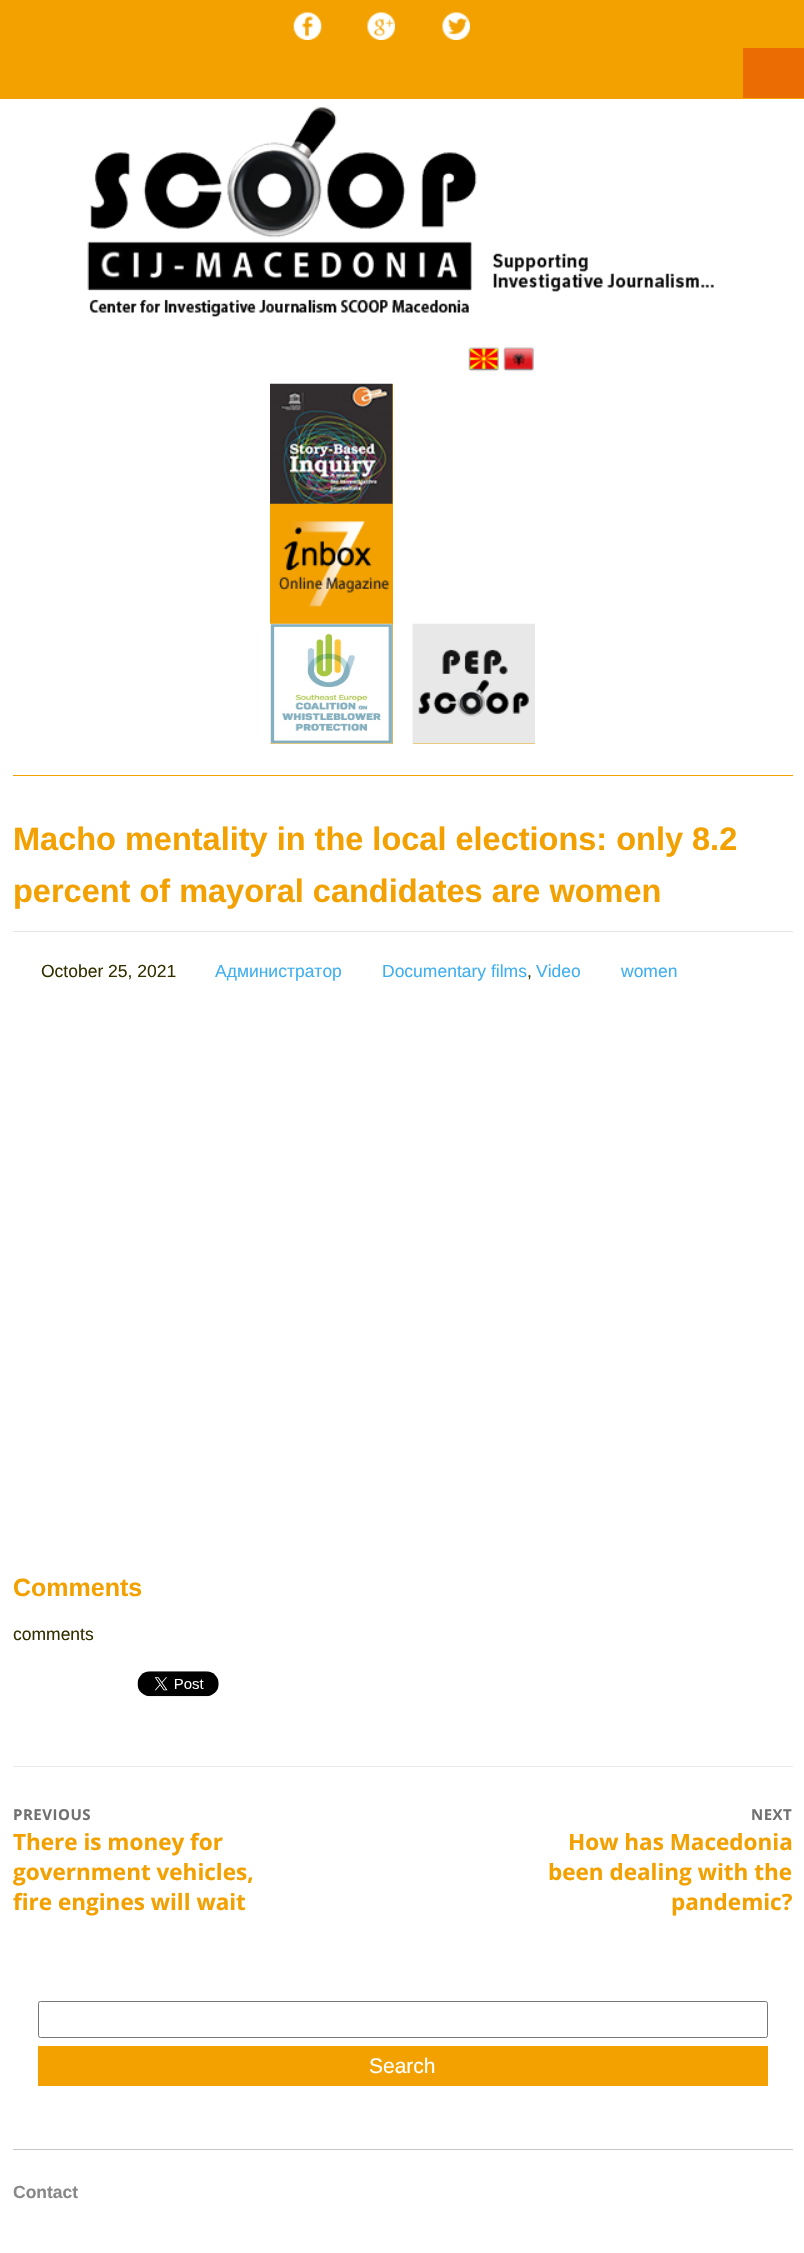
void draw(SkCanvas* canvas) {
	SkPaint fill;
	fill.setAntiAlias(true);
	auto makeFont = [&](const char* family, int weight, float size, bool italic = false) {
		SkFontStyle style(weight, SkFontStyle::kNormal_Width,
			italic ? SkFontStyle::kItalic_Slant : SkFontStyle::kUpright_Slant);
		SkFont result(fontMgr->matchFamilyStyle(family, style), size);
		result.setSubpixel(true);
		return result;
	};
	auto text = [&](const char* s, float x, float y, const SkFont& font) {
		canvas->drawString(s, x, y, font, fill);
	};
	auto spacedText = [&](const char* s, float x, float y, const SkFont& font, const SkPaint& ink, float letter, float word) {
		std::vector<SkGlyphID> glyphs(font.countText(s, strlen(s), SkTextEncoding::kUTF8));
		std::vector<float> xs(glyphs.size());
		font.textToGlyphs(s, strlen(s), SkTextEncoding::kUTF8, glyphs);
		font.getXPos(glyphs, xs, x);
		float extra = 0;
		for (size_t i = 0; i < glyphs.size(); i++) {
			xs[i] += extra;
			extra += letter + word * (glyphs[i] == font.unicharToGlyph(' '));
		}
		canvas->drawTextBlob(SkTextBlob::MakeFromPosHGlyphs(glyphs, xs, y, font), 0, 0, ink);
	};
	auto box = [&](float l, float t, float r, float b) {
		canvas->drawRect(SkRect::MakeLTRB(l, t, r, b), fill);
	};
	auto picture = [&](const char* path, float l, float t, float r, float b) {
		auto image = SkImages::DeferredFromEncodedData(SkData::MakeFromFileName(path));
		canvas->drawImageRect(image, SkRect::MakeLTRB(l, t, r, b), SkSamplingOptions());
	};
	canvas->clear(0xFFFFFFFF);
	fill.setColor(0xFFF2A100);
	box(0, 0, 804, 99);
	picture("image0.png", 293, 12, 322, 40);
	picture("image1.png", 367, 12, 395, 40);
	picture("image2.png", 442, 12, 470, 40);
	fill.setColor(0xFFEC6C04);
	box(743, 48, 804, 98);
	fill.setColor(0xFFF2A100);
	box(13, 775, 793, 776);
	picture("image3.png", 87, 107, 714, 317);
	picture("image4.png", 468, 347, 499, 372);
	picture("image5.png", 503, 347, 534, 372);
	box(270, 384, 393, 744);
	picture("image6.png", 270, 383, 393, 504);
	picture("image7.png", 278, 521, 389, 607);
	picture("image8.png", 270, 623, 393, 744);
	box(413, 743, 535, 744);
	picture("image9.png", 412, 623, 535, 744);
	fill.setColor(0xFFE4E4E4);
	box(13, 931, 793, 932);
	picture("image10.png", 137, 1671, 219, 1697);
	fill.setColor(0xFFEBEBEB);
	box(13, 1766, 793, 1767);
	fill.setStyle(SkPaint::kStroke_Style);
	fill.setStrokeWidth(1);
	fill.setColor(0xFF767676);
	canvas->drawRoundRect(SkRect::MakeLTRB(38.5f, 2001.5f, 767.5f, 2037.5f), 2, 2, fill);
	fill.setStyle(SkPaint::kFill_Style);
	fill.setColor(0xFFF2A100);
	box(38, 2046, 768, 2086);
	fill.setColor(0xFFC8C8C8);
	box(13, 2149, 793, 2150);
	auto font1 = makeFont("Liberation Sans", 700, 32.5f);
	fill.setColor(0xFFF2A100);
	text("Macho mentality in the local elections: only 8.2", 13, 850, font1);
	text("percent of mayoral candidates are women", 13, 902, font1);
	auto font2 = makeFont("Liberation Sans", 400, 17.5f);
	fill.setColor(0xFF333000);
	text("October 25, 2021", 41, 977, font2);
	fill.setColor(0xFF3FAFEE);
	text("Администратор", 215, 977, font2);
	text("Documentary films", 382, 977, font2);
	fill.setColor(0xFF333000);
	text(",", 527, 977, font2);
	fill.setColor(0xFF3FAFEE);
	text("Video", 536, 977, font2);
	text("women", 621, 977, font2);
	auto font3 = makeFont("Liberation Sans", 700, 25);
	fill.setColor(0xFFF2A100);
	text("Comments", 13, 1596, font3);
	fill.setColor(0xFF333000);
	text("comments", 13, 1640, font2);
	auto font4 = makeFont("Open Sans", 700, 15);
	fill.setColor(0xFF707070);
	spacedText("PREVIOUS", 13, 1820, font4, fill, 0.5f, 0);
	auto font5 = makeFont("Open Sans", 700, 22.5f);
	fill.setColor(0xFFF2A100);
	text("There is money for", 13, 1850, font5);
	text("government vehicles,", 13, 1880, font5);
	text("fire engines will wait", 13, 1910, font5);
	fill.setColor(0xFF707070);
	spacedText("NEXT", 751, 1820, font4, fill, 0.5f, 0);
	fill.setColor(0xFFF2A100);
	text("How has Macedonia", 568, 1850, font5);
	text("been dealing with the", 548, 1880, font5);
	text("pandemic?", 671, 1910, font5);
	auto font6 = makeFont("Liberation Sans", 400, 21);
	fill.setColor(0xFFFFFFFF);
	text("Search", 369, 2073, font6);
	auto font7 = makeFont("Liberation Sans", 700, 17.5f);
	fill.setColor(0xFF88888A);
	text("Contact", 13, 2198, font7);
}
